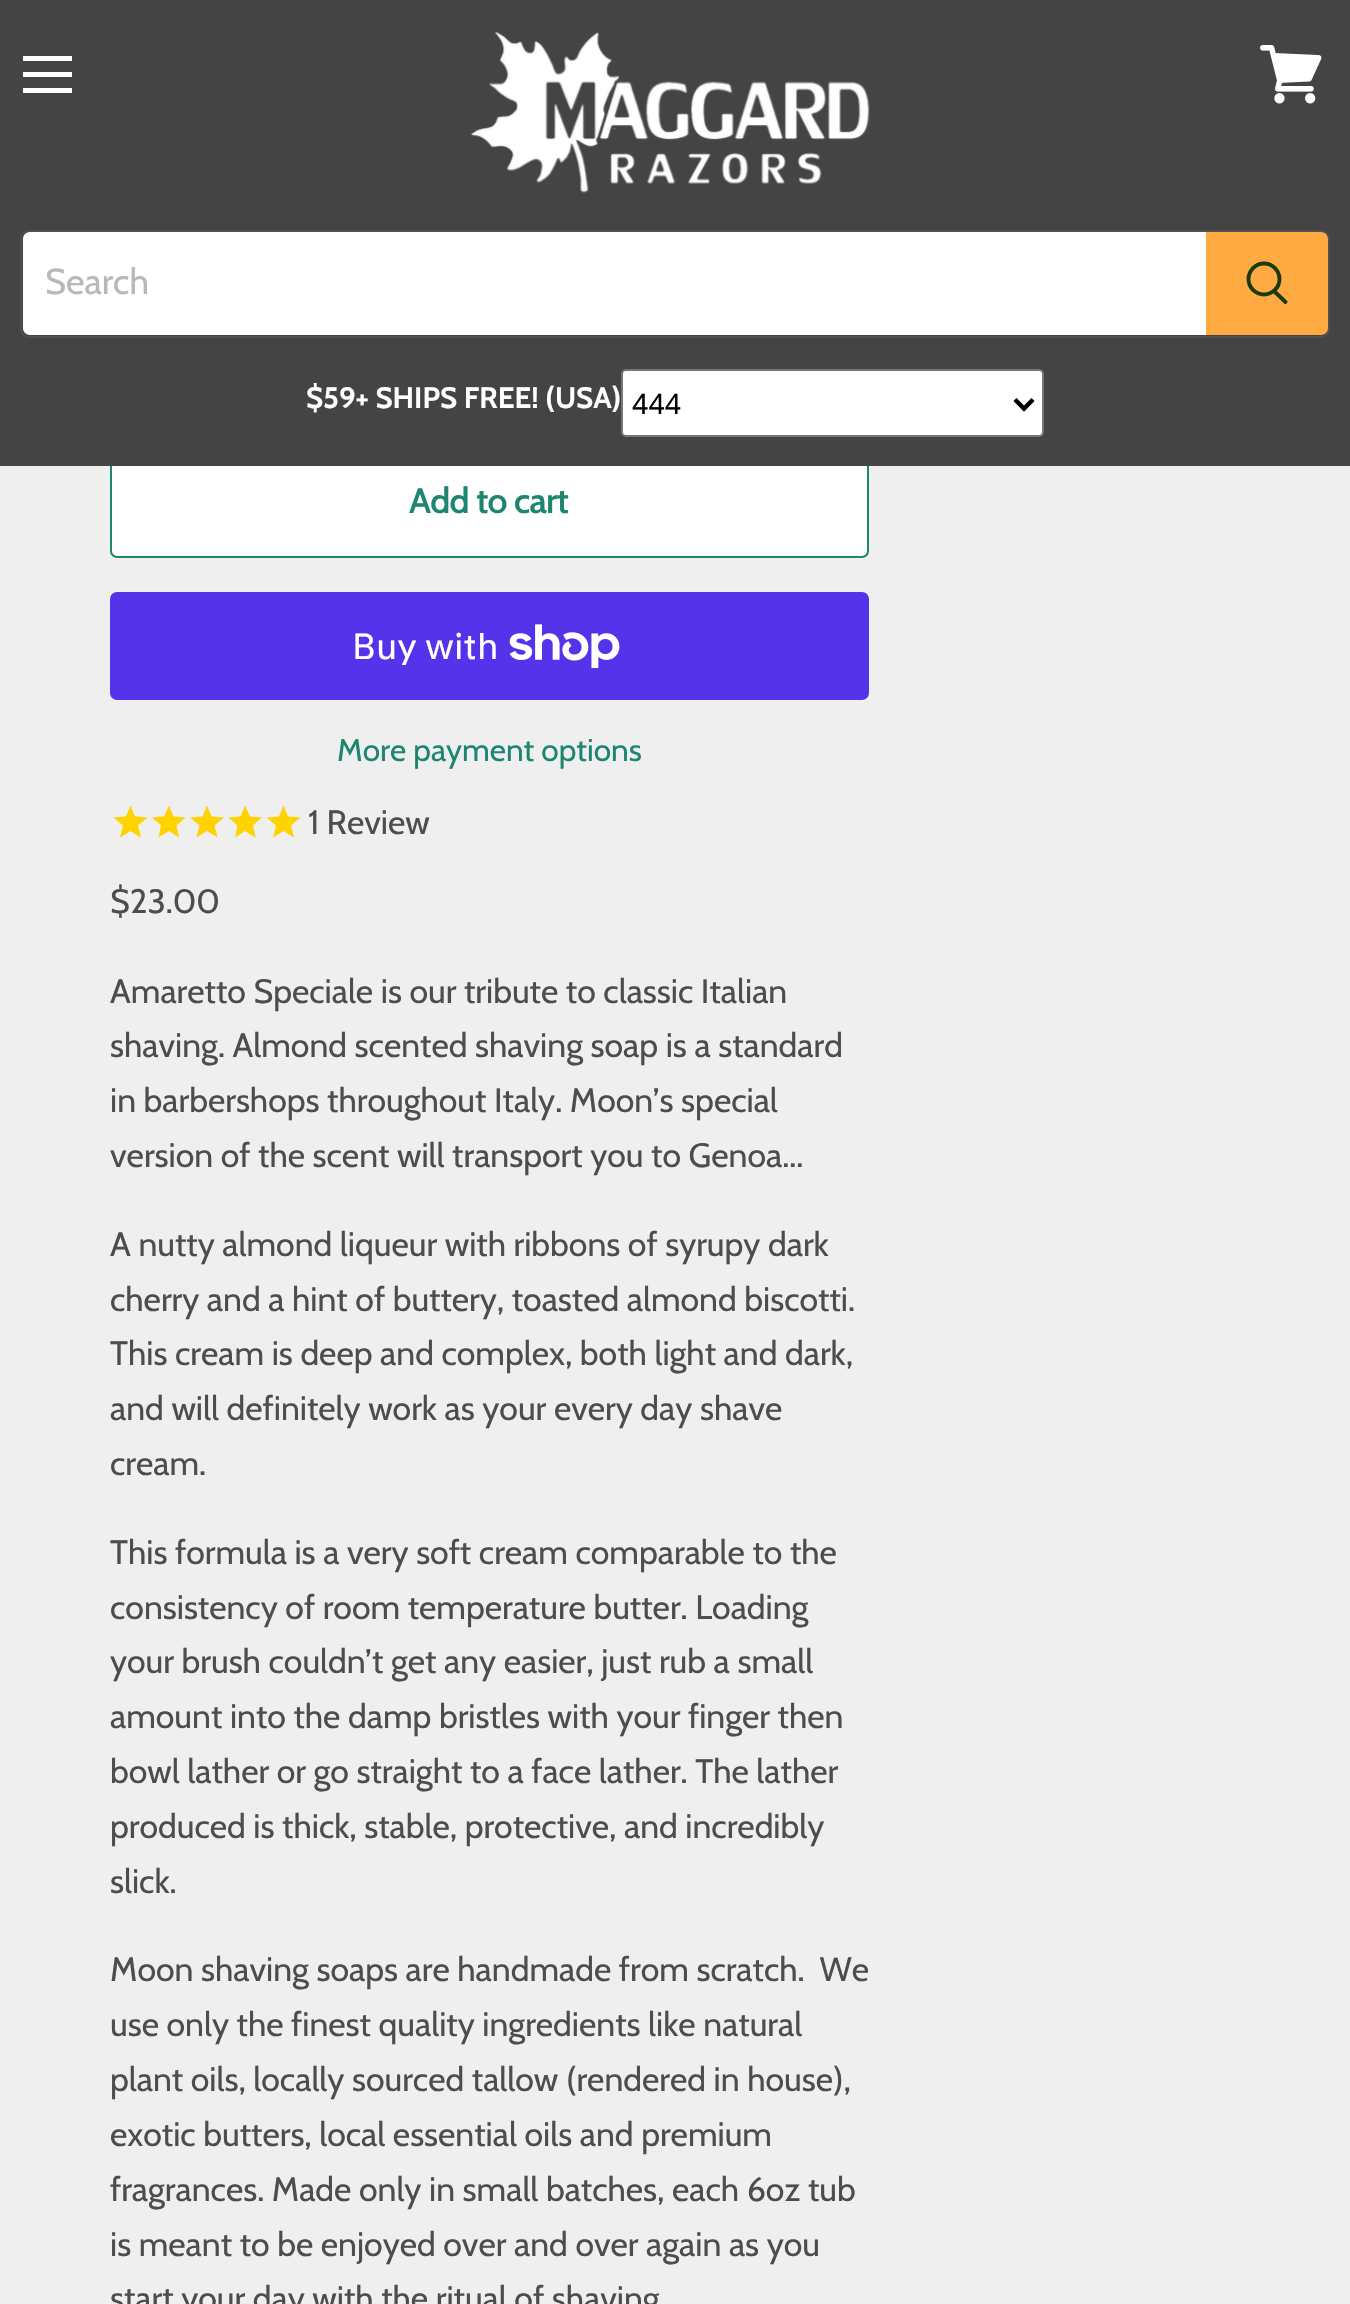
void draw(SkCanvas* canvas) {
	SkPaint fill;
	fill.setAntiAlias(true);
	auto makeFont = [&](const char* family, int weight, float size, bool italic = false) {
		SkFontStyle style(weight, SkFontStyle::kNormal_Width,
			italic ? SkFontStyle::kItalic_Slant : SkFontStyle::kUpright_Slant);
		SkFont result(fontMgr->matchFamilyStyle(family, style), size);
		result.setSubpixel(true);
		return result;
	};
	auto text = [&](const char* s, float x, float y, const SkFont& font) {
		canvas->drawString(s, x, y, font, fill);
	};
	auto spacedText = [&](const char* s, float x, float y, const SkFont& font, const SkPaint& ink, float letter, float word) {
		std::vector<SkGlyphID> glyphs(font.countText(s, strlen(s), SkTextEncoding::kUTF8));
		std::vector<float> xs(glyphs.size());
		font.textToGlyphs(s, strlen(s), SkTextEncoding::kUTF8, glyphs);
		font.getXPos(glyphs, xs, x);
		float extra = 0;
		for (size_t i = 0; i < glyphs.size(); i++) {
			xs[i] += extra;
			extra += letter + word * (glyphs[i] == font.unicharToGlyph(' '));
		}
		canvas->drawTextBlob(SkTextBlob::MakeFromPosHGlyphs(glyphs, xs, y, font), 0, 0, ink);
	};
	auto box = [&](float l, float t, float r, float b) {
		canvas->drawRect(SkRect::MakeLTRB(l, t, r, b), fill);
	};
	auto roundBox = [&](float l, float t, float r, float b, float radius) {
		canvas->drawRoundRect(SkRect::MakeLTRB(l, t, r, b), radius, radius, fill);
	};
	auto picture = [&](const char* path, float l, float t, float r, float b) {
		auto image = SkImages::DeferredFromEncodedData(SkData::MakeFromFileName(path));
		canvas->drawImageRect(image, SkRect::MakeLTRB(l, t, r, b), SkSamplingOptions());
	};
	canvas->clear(0xFFEFEFEF);
	fill.setColor(0xFFFFFFFF);
	canvas->drawRoundRect(SkRect::MakeLTRB(111, 447, 868, 557), 6, 6, fill);
	fill.setStyle(SkPaint::kStroke_Style);
	fill.setStrokeWidth(2);
	fill.setColor(0xFF1E8570);
	canvas->drawRoundRect(SkRect::MakeLTRB(111, 447, 868, 557), 6, 6, fill);
	fill.setStyle(SkPaint::kFill_Style);
	fill.setColor(0xFF444444);
	box(0, 0, 1350, 466);
	fill.setColor(0xFFFFFFFF);
	box(23, 56, 72, 61);
	box(23, 72, 72, 77);
	box(23, 88, 72, 93);
	picture("image0.png", 1260, 45, 1322, 104);
	picture("image1.png", 466, 22, 884, 209);
	fill.setStyle(SkPaint::kStroke_Style);
	fill.setColor(0x33787878);
	canvas->drawRoundRect(SkRect::MakeLTRB(21, 231, 1329, 337), 8, 8, fill);
	fill.setStyle(SkPaint::kFill_Style);
	fill.setColor(0xFFFFFFFF);
	canvas->drawPath(SkPathBuilder().moveTo(30, 232).lineTo(1206, 232).lineTo(1206, 335).lineTo(30, 335).cubicTo(26, 335, 23, 332, 23, 328).lineTo(23, 239).cubicTo(23, 235, 26, 232, 30, 232).close().detach(), fill);
	fill.setColor(0xFFFFAB41);
	canvas->drawPath(SkPathBuilder().moveTo(1207, 233).lineTo(1321, 233).cubicTo(1324.5f, 233, 1327, 235.5f, 1327, 239).lineTo(1327, 328).cubicTo(1327, 331.5f, 1324.5f, 334, 1321, 334).lineTo(1207, 334).close().detach(), fill);
	fill.setStyle(SkPaint::kStroke_Style);
	canvas->drawPath(SkPathBuilder().moveTo(1207, 233).lineTo(1321, 233).cubicTo(1324.5f, 233, 1327, 235.5f, 1327, 239).lineTo(1327, 328).cubicTo(1327, 331.5f, 1324.5f, 334, 1321, 334).lineTo(1207, 334).close().detach(), fill);
	fill.setStrokeWidth(3.9f);
	fill.setStrokeCap(SkPaint::kRound_Cap);
	fill.setColor(0xFF1A390C);
	canvas->drawPath(SkPathBuilder().moveTo(1285.5f, 302).lineTo(1274.5f, 291.5f).detach(), fill);
	fill.setStrokeCap(SkPaint::kButt_Cap);
	canvas->drawCircle(1264, 279, 15.5f, fill);
	fill.setStyle(SkPaint::kFill_Style);
	fill.setColor(0xFFFFFFFF);
	canvas->drawRoundRect(SkRect::MakeLTRB(622, 370, 1043, 436), 4, 4, fill);
	fill.setStyle(SkPaint::kStroke_Style);
	fill.setStrokeWidth(2);
	fill.setColor(0xFF767676);
	canvas->drawRoundRect(SkRect::MakeLTRB(622, 370, 1043, 436), 4, 4, fill);
	fill.setStrokeWidth(4.5f);
	fill.setColor(0xFF000000);
	canvas->drawPath(SkPathBuilder().moveTo(1015, 399.5f).lineTo(1024, 408.5f).lineTo(1033, 399.5f).detach(), fill);
	fill.setStyle(SkPaint::kFill_Style);
	fill.setColor(0xFF5433EB);
	roundBox(110, 592, 869, 700, 7);
	picture("image2.png", 509, 624, 620, 668);
	fill.setColor(0xFFFFD200);
	canvas->drawPath(SkPathBuilder().moveTo(130.5f, 831).lineTo(120, 837.5f).lineTo(123, 825.5f).lineTo(113.5f, 817.5f).lineTo(126, 816.5f).lineTo(130.5f, 805.5f).lineTo(135, 816.5f).lineTo(147.5f, 817.5f).lineTo(138, 825.5f).lineTo(141, 837.5f).close().detach(), fill);
	canvas->drawPath(SkPathBuilder().moveTo(169, 831).lineTo(158.5f, 837.5f).lineTo(161, 825.5f).lineTo(152, 817.5f).lineTo(164, 816.5f).lineTo(169, 805.5f).lineTo(173.5f, 816.5f).lineTo(185.5f, 817.5f).lineTo(176.5f, 825.5f).lineTo(179, 837.5f).close().detach(), fill);
	canvas->drawPath(SkPathBuilder().moveTo(207, 831).lineTo(196.5f, 837.5f).lineTo(199.5f, 825.5f).lineTo(190, 817.5f).lineTo(202.5f, 816.5f).lineTo(207, 805.5f).lineTo(211.5f, 816.5f).lineTo(224, 817.5f).lineTo(214.5f, 825.5f).lineTo(217.5f, 837.5f).close().detach(), fill);
	canvas->drawPath(SkPathBuilder().moveTo(245, 831).lineTo(235, 837.5f).lineTo(237.5f, 825.5f).lineTo(228.5f, 817.5f).lineTo(240.5f, 816.5f).lineTo(245, 805.5f).lineTo(250, 816.5f).lineTo(262, 817.5f).lineTo(253, 825.5f).lineTo(255.5f, 837.5f).close().detach(), fill);
	canvas->drawPath(SkPathBuilder().moveTo(283.5f, 831).lineTo(273, 837.5f).lineTo(276, 825.5f).lineTo(266.5f, 817.5f).lineTo(279, 816.5f).lineTo(283.5f, 805.5f).lineTo(288, 816.5f).lineTo(300.5f, 817.5f).lineTo(291, 825.5f).lineTo(294, 837.5f).close().detach(), fill);
	auto font1 = makeFont("Cabin", 400, 36);
	fill.setColor(0xFFB8B8B8);
	text("Search", 45, 294, font1);
	auto font2 = makeFont("Cabin", 700, 29.5f);
	fill.setColor(0xFFFFFFFF);
	text("$59+ SHIPS FREE! (USA)", 306, 408, font2);
	auto font3 = makeFont("Liberation Sans", 400, 29.5f);
	fill.setColor(0xFF000000);
	text("444", 632, 414, font3);
	auto font4 = makeFont("Cabin", 600, 35.5f);
	fill.setColor(0xFF1E8570);
	spacedText("Add to cart", 409, 513, font4, fill, -0.75f, 0);
	auto font5 = makeFont("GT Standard", 400, 36);
	fill.setColor(0xFFFFFFFF);
	text("Buy with", 352, 659, font5);
	auto font6 = makeFont("Cabin", 400, 31.6f);
	fill.setColor(0xFF1E8570);
	text("More payment options", 337, 761, font6);
	auto font7 = makeFont("Cabin", 400, 33.75f);
	fill.setColor(0xFF4D4D4D);
	text("1 Review", 308, 834, font7);
	text("$23.00", 110, 913, font7);
	text("Amaretto Speciale is our tribute to classic Italian", 110, 1003, font7);
	text("shaving. Almond scented shaving soap is a standard", 110, 1057, font7);
	text("in barbershops throughout Italy. Moon’s special", 110, 1112, font7);
	text("version of the scent will transport you to Genoa...", 110, 1167, font7);
	text("A nutty almond liqueur with ribbons of syrupy dark", 110, 1256, font7);
	text("cherry and a hint of buttery, toasted almond biscotti.", 110, 1311, font7);
	text("This cream is deep and complex, both light and dark,", 110, 1365, font7);
	text("and will definitely work as your every day shave", 110, 1420, font7);
	text("cream.", 110, 1475, font7);
	text("This formula is a very soft cream comparable to the", 110, 1564, font7);
	text("consistency of room temperature butter. Loading", 110, 1619, font7);
	text("your brush couldn’t get any easier, just rub a small", 110, 1673, font7);
	text("amount into the damp bristles with your finger then", 110, 1728, font7);
	text("bowl lather or go straight to a face lather. The lather", 110, 1783, font7);
	text("produced is thick, stable, protective, and incredibly", 110, 1838, font7);
	text("slick.", 110, 1893, font7);
	text("Moon shaving soaps are handmade from scratch.  We", 110, 1981, font7);
	text("use only the finest quality ingredients like natural", 110, 2036, font7);
	text("plant oils, locally sourced tallow (rendered in house),", 110, 2091, font7);
	text("exotic butters, local essential oils and premium", 110, 2146, font7);
	text("fragrances. Made only in small batches, each 6oz tub", 110, 2201, font7);
	text("is meant to be enjoyed over and over again as you", 110, 2256, font7);
	text("start your day with the ritual of shaving", 110, 2310, font7);
}
